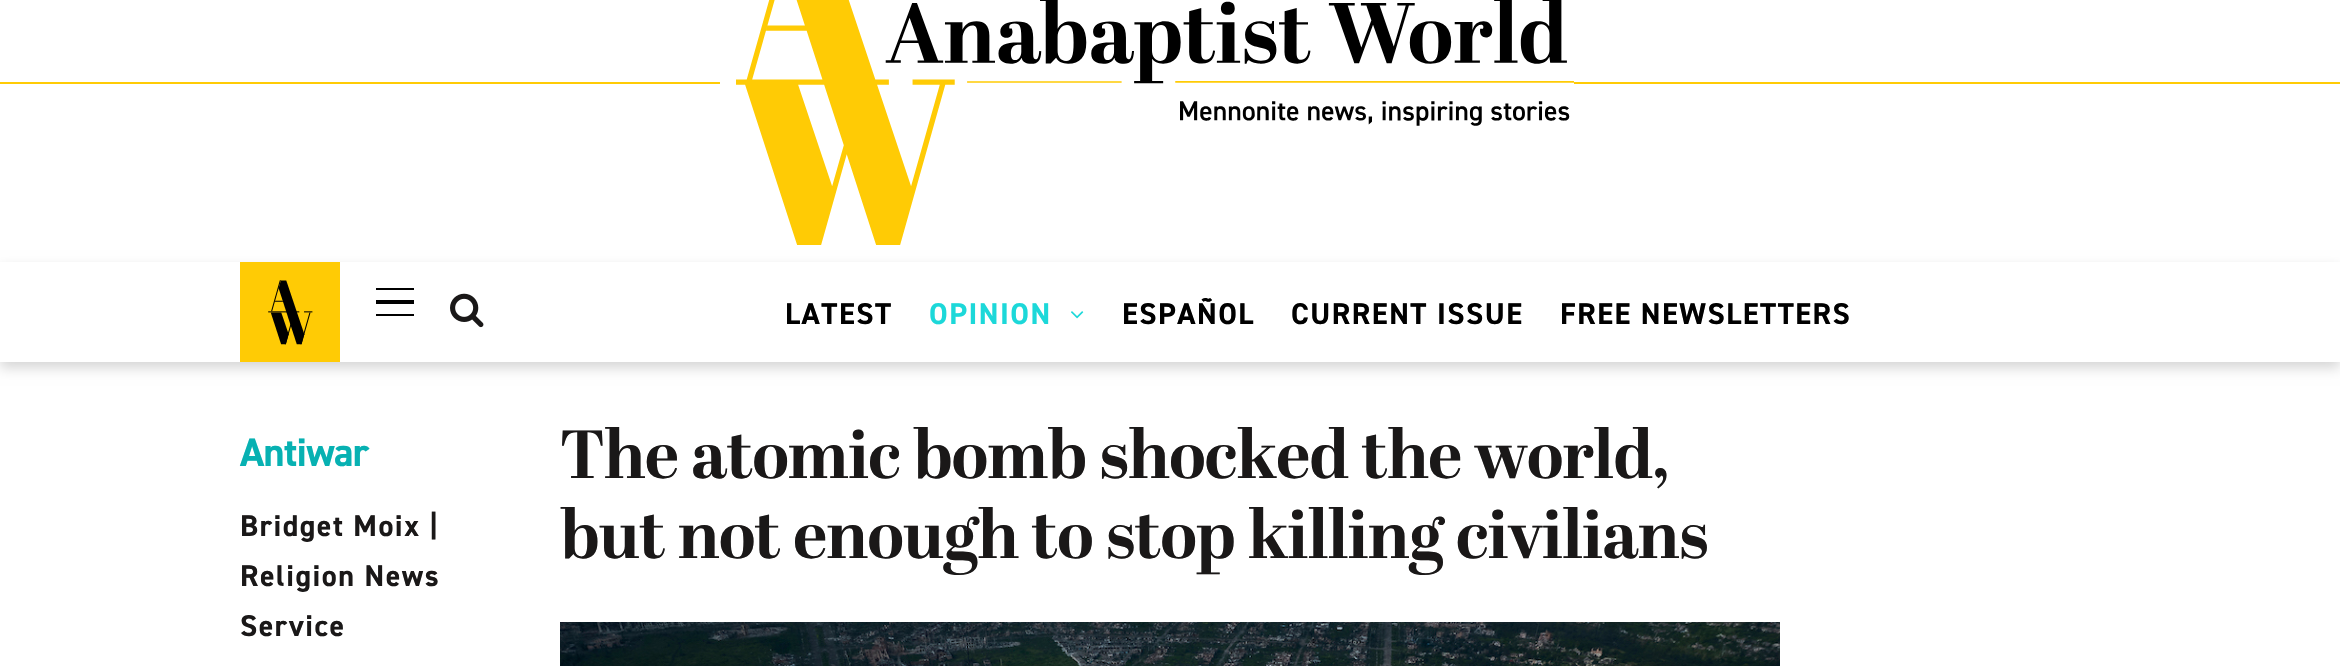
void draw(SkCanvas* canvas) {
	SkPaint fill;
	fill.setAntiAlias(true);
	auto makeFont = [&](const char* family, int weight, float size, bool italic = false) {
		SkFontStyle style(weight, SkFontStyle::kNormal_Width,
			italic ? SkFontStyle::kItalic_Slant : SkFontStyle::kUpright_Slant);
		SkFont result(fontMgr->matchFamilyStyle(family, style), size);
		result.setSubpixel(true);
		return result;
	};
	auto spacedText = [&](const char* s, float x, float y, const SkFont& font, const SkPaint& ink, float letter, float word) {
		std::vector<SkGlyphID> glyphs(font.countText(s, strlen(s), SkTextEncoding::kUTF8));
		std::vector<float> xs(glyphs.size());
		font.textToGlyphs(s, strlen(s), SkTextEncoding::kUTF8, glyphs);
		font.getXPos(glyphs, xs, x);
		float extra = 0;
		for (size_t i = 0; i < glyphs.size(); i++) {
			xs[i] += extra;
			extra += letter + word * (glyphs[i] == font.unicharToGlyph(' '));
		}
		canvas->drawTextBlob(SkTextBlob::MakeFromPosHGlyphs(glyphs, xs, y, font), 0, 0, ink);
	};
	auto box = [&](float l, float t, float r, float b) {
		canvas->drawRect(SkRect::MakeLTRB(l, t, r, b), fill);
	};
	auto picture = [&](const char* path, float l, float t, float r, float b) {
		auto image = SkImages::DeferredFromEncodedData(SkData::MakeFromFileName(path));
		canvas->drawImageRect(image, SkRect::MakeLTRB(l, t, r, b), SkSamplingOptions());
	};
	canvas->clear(0xFFFFFFFF);
	fill.setColor(0xFFFFCB05);
	box(0, 82, 2340, 84);
	fill.setColor(0xFFFFFFFF);
	box(720, 82, 1574, 84);
	picture("image0.png", 736, 0, 1574, 245);
	canvas->save();
	canvas->clipPath(SkPathBuilder(SkPathFillType::kEvenOdd).moveTo(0, 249).lineTo(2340, 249).lineTo(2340, 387).lineTo(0, 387).close().moveTo(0, 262).lineTo(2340, 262).lineTo(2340, 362).lineTo(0, 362).close().detach(), true);
	fill.setColor(0x29000000);
	fill.setMaskFilter(SkMaskFilter::MakeBlur(kNormal_SkBlurStyle, 6));
	canvas->drawRect(SkRect::MakeLTRB(0, 268, 2340, 368), fill);
	fill.setMaskFilter(nullptr);
	canvas->restore();
	picture("image1.png", 240, 262, 340, 362);
	fill.setColor(0xFF000000);
	box(376, 288, 414, 290);
	box(376, 314, 414, 316);
	box(376, 300, 414, 304);
	picture("image2.png", 450, 293, 484, 328);
	picture("image3.png", 1071, 311, 1084, 319);
	picture("image4.png", 560, 622, 1780, 666);
	auto font1 = makeFont("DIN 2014", 700, 30);
	spacedText("LATEST", 785, 324, font1, fill, 1.5f, 0);
	fill.setColor(0xFF1CD8D9);
	spacedText("OPINION", 929, 324, font1, fill, 1.5f, 0);
	fill.setColor(0xFF000000);
	spacedText("ESPAÑOL", 1122, 324, font1, fill, 1.5f, 0);
	spacedText("CURRENT ISSUE", 1291, 324, font1, fill, 1.5f, 0);
	spacedText("FREE NEWSLETTERS", 1560, 324, font1, fill, 1.5f, 0);
	auto font2 = makeFont("DIN 2014", 700, 40);
	fill.setColor(0xFF07B1B2);
	spacedText("Antiwar", 240, 466, font2, fill, -0.7f, 0);
	fill.setColor(0xFF1A1818);
	spacedText("Bridget Moix |", 240, 536, font1, fill, 1.5f, 0);
	spacedText("Religion News", 240, 586, font1, fill, 1.5f, 0);
	spacedText("Service", 240, 636, font1, fill, 1.5f, 0);
	auto font3 = makeFont("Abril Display", 700, 68);
	spacedText("The atomic bomb shocked the world,", 560, 478, font3, fill, -0.7f, 0);
	spacedText("but not enough to stop killing civilians", 560, 558, font3, fill, -0.7f, 0);
}
